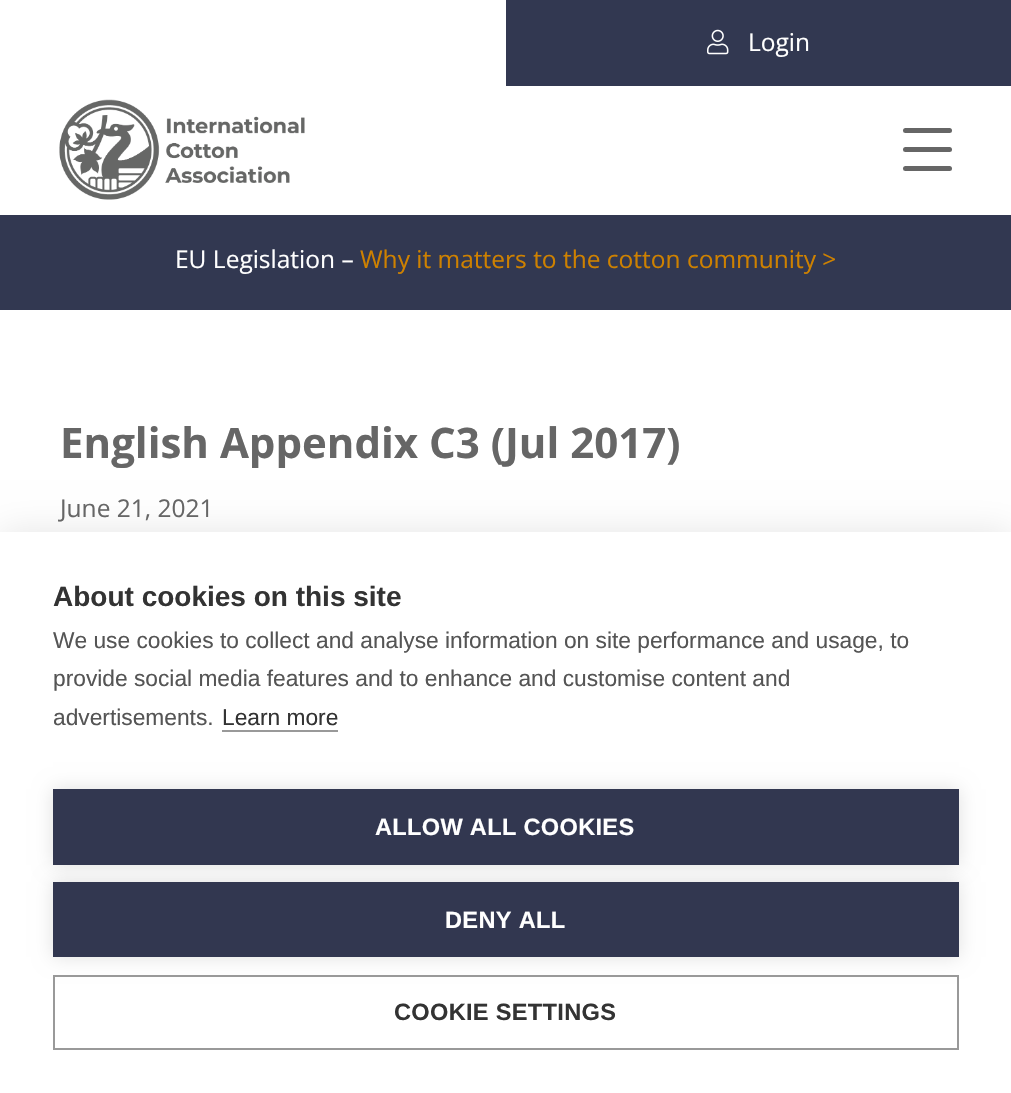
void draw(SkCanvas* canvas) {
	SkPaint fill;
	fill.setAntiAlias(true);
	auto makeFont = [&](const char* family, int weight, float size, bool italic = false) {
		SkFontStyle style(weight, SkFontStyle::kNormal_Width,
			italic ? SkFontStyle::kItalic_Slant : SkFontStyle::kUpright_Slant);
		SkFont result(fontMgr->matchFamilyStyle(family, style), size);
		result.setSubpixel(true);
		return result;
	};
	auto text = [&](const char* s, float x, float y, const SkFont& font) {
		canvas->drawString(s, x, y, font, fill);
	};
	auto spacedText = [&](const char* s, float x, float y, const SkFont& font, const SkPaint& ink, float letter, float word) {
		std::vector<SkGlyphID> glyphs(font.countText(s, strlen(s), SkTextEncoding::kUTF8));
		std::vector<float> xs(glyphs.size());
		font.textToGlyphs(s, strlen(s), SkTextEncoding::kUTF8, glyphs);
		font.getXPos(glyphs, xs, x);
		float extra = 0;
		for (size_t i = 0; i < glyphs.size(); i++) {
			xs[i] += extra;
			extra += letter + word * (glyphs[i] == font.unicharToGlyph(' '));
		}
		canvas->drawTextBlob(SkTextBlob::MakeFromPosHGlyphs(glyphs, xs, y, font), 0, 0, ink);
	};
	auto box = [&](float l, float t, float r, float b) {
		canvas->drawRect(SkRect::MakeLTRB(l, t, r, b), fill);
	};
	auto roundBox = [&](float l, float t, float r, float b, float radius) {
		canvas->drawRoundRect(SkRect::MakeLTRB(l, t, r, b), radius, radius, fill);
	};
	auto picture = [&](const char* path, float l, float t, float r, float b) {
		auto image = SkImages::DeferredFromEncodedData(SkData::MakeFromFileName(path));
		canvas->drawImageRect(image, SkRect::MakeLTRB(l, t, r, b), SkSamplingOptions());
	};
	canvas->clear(0xFFFFFFFF);
	fill.setColor(0xFF323851);
	box(506, 0, 1011, 86);
	picture("image0.png", 707, 29, 729, 55);
	picture("image1.png", 59, 99, 305, 200);
	fill.setColor(0xFF666666);
	roundBox(903, 128, 952, 133, 2.5f);
	roundBox(903, 147, 952, 152, 2.5f);
	roundBox(903, 166, 952, 171, 2.5f);
	fill.setColor(0xFF323851);
	box(0, 215, 1011, 310);
	fill.setColor(0x1A000000);
	fill.setMaskFilter(SkMaskFilter::MakeBlur(kNormal_SkBlurStyle, 17.5f));
	canvas->drawRect(SkRect::MakeLTRB(0, 532, 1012, 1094), fill);
	fill.setMaskFilter(nullptr);
	fill.setColor(0xFFFFFFFF);
	box(0, 532, 1011, 1093);
	fill.setColor(0xFF999999);
	box(222, 730, 338, 732);
	fill.setColor(0x1F000000);
	fill.setMaskFilter(SkMaskFilter::MakeBlur(kNormal_SkBlurStyle, 9));
	canvas->drawRect(SkRect::MakeLTRB(53, 789, 959, 865), fill);
	fill.setMaskFilter(nullptr);
	fill.setColor(0xFF323750);
	box(53, 789, 959, 865);
	fill.setColor(0x1F000000);
	fill.setMaskFilter(SkMaskFilter::MakeBlur(kNormal_SkBlurStyle, 9));
	canvas->drawRect(SkRect::MakeLTRB(53, 882, 959, 957), fill);
	fill.setMaskFilter(nullptr);
	fill.setColor(0xFF323750);
	box(53, 882, 959, 957);
	fill.setStyle(SkPaint::kStroke_Style);
	fill.setStrokeWidth(2);
	fill.setColor(0xFF999999);
	canvas->drawRect(SkRect::MakeLTRB(54, 976, 958, 1049), fill);
	auto font1 = makeFont("Open Sans", 400, 24.5f);
	fill.setStyle(SkPaint::kFill_Style);
	fill.setColor(0xFFFFFFFF);
	text("Login", 748, 51, font1);
	text("EU Legislation –", 175, 268, font1);
	fill.setColor(0xFFCE8100);
	text("Why it matters to the cotton community >", 360, 268, font1);
	auto font2 = makeFont("Open Sans", 700, 42);
	fill.setColor(0xFF666666);
	text("English Appendix C3 (Jul 2017)", 60, 458, font2);
	text("June 21, 2021", 60, 517, font1);
	auto font3 = makeFont("Liberation Sans", 700, 28);
	fill.setColor(0xFF333333);
	text("About cookies on this site", 53, 606, font3);
	auto font4 = makeFont("Liberation Sans", 400, 22.75f);
	fill.setColor(0xFF555555);
	text("We use cookies to collect and analyse information on site performance and usage, to", 53, 648, font4);
	text("provide social media features and to enhance and customise content and", 53, 686, font4);
	text("advertisements.", 53, 725, font4);
	fill.setColor(0xFF333333);
	text("Learn more", 222, 725, font4);
	auto font5 = makeFont("Liberation Sans", 700, 23.6f);
	fill.setColor(0xFFFFFFFF);
	spacedText("ALLOW ALL COOKIES", 375, 835, font5, fill, 0.3f, 0);
	spacedText("DENY ALL", 445, 928, font5, fill, 0.3f, 0);
	fill.setColor(0xFF333333);
	spacedText("COOKIE SETTINGS", 394, 1020, font5, fill, 0.3f, 0);
}
